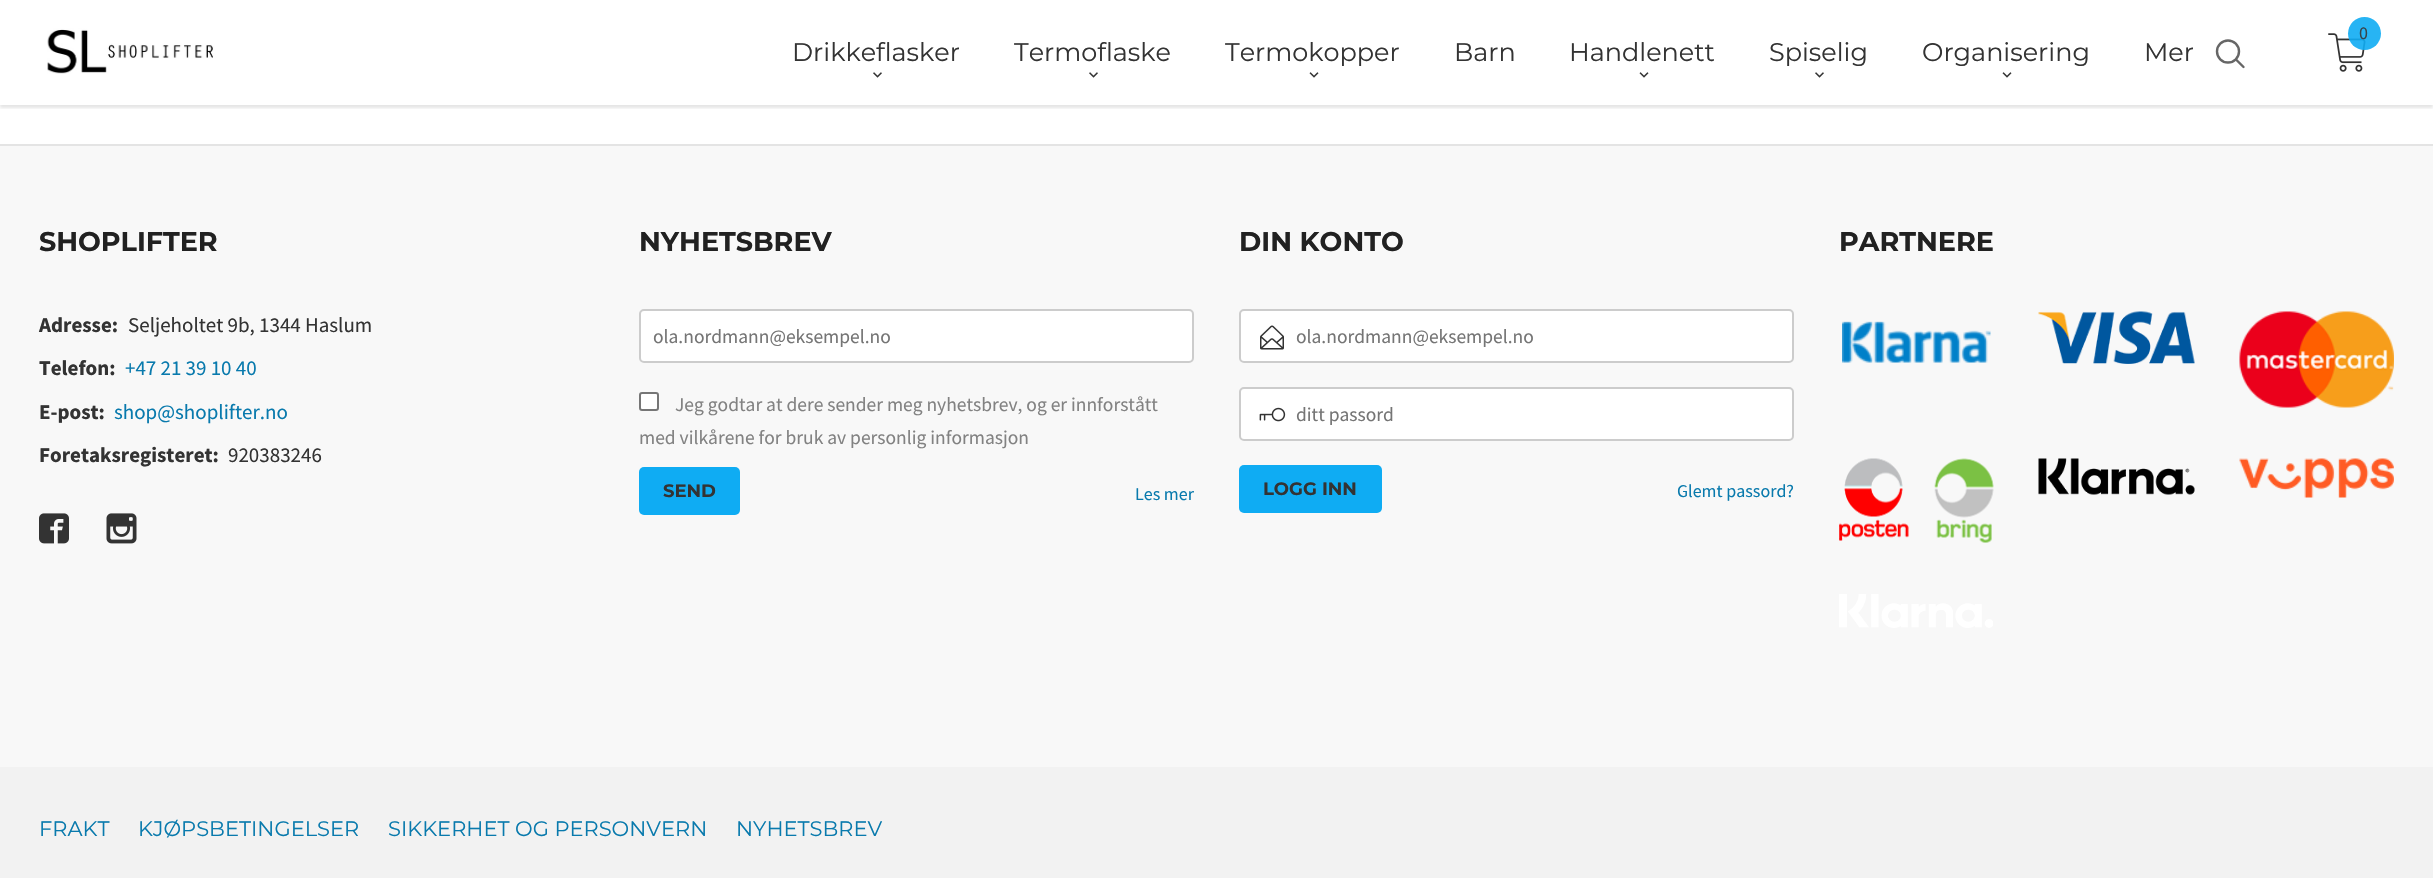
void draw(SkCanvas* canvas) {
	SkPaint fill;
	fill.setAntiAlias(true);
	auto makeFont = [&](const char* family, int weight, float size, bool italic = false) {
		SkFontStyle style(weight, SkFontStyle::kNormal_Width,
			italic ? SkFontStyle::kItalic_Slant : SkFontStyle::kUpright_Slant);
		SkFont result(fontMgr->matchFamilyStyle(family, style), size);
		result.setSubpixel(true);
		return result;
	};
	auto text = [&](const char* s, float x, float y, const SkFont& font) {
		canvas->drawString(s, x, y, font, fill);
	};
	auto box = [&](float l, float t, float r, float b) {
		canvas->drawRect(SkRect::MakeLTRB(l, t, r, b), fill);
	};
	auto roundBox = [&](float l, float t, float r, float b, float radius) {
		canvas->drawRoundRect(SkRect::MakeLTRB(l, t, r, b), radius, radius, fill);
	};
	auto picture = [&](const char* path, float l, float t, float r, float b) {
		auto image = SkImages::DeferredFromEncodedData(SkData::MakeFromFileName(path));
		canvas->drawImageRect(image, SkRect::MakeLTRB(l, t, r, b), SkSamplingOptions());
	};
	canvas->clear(0xFFF8F8F8);
	fill.setColor(0xFFFFFFFF);
	box(0, 0, 2433, 144);
	canvas->save();
	canvas->clipRect(SkRect::MakeLTRB(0, 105, 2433, 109));
	fill.setColor(0x1A000000);
	fill.setMaskFilter(SkMaskFilter::MakeBlur(kNormal_SkBlurStyle, 1.5f));
	canvas->drawRect(SkRect::MakeLTRB(0, 3, 2433, 108), fill);
	fill.setMaskFilter(nullptr);
	canvas->restore();
	picture("image0.png", 2328, 33, 2366, 72);
	fill.setColor(0xE60FACF3);
	canvas->drawCircle(2364.5f, 33.5f, 16.5f, fill);
	picture("image1.png", 47, 17, 218, 74);
	picture("image2.png", 873, 72, 882, 78);
	picture("image2.png", 1089, 72, 1098, 78);
	picture("image3.png", 1309, 72, 1319, 78);
	picture("image3.png", 1639, 72, 1649, 78);
	picture("image2.png", 1815, 72, 1824, 78);
	picture("image3.png", 2002, 72, 2012, 78);
	fill.setStyle(SkPaint::kStroke_Style);
	fill.setStrokeWidth(2.4f);
	fill.setColor(0xFF666666);
	canvas->drawCircle(2228, 51.5f, 11, fill);
	fill.setStrokeCap(SkPaint::kRound_Cap);
	canvas->drawPath(SkPathBuilder().moveTo(2243.5f, 67).lineTo(2236, 59.5f).detach(), fill);
	fill.setStyle(SkPaint::kFill_Style);
	fill.setColor(0xFFE4E4E4);
	box(0, 144, 2433, 146);
	picture("image4.png", 39, 513, 69, 544);
	picture("image5.png", 106, 513, 137, 544);
	fill.setColor(0xFFFFFFFF);
	canvas->drawRoundRect(SkRect::MakeLTRB(640, 310, 1193, 362), 4, 4, fill);
	fill.setStyle(SkPaint::kStroke_Style);
	fill.setStrokeWidth(2);
	fill.setStrokeCap(SkPaint::kButt_Cap);
	fill.setColor(0xFFCCCCCC);
	canvas->drawRoundRect(SkRect::MakeLTRB(640, 310, 1193, 362), 4, 4, fill);
	fill.setStyle(SkPaint::kFill_Style);
	fill.setColor(0xFFFFFFFF);
	canvas->drawRoundRect(SkRect::MakeLTRB(640, 393, 658, 410), 2, 2, fill);
	fill.setStyle(SkPaint::kStroke_Style);
	fill.setColor(0xFF767676);
	canvas->drawRoundRect(SkRect::MakeLTRB(640, 393, 658, 410), 2, 2, fill);
	fill.setStyle(SkPaint::kFill_Style);
	fill.setColor(0xFF0FACF3);
	roundBox(639, 467, 740, 515, 5);
	fill.setColor(0xFFFFFFFF);
	canvas->drawRoundRect(SkRect::MakeLTRB(1240, 310, 1793, 362), 4, 4, fill);
	fill.setStyle(SkPaint::kStroke_Style);
	fill.setColor(0xFFCCCCCC);
	canvas->drawRoundRect(SkRect::MakeLTRB(1240, 310, 1793, 362), 4, 4, fill);
	picture("image6.png", 1260, 325, 1284, 350);
	fill.setStyle(SkPaint::kFill_Style);
	fill.setColor(0xFFFFFFFF);
	canvas->drawRoundRect(SkRect::MakeLTRB(1240, 388, 1793, 440), 4, 4, fill);
	fill.setStyle(SkPaint::kStroke_Style);
	fill.setColor(0xFFCCCCCC);
	canvas->drawRoundRect(SkRect::MakeLTRB(1240, 388, 1793, 440), 4, 4, fill);
	picture("image7.png", 1259, 407, 1286, 422);
	fill.setStyle(SkPaint::kFill_Style);
	fill.setColor(0xFF0FACF3);
	roundBox(1239, 465, 1382, 513, 5);
	picture("image8.png", 1842, 321, 1991, 363);
	picture("image9.png", 2038, 311, 2195, 364);
	picture("image10.png", 2239, 311, 2394, 408);
	picture("image11.png", 1839, 458, 1994, 543);
	picture("image12.png", 2038, 458, 2195, 495);
	picture("image13.png", 2239, 458, 2394, 498);
	picture("image14.png", 1839, 594, 1993, 628);
	fill.setColor(0xFFF2F2F2);
	box(0, 767, 2433, 878);
	auto font1 = makeFont("Source Sans Pro", 400, 18);
	fill.setColor(0xFF36444B);
	text("0", 2359, 39, font1);
	auto font2 = makeFont("Montserrat", 400, 25.5f);
	fill.setColor(0xFF333333);
	text("Drikkeflasker", 792, 61, font2);
	text("Termoflaske", 1014, 61, font2);
	text("Termokopper", 1225, 61, font2);
	text("Barn", 1454, 61, font2);
	text("Handlenett", 1569, 61, font2);
	text("Spiselig", 1769, 61, font2);
	text("Organisering", 1922, 61, font2);
	text("Mer", 2144, 61, font2);
	auto font3 = makeFont("Montserrat", 700, 27);
	fill.setColor(0xFF212121);
	text("SHOPLIFTER", 39, 251, font3);
	auto font4 = makeFont("Source Sans Pro", 700, 21);
	fill.setColor(0xFF333333);
	text("Adresse:", 39, 332, font4);
	auto font5 = makeFont("Source Sans Pro", 400, 21);
	text("Seljeholtet 9b, 1344 Haslum", 128, 332, font5);
	text("Telefon:", 39, 375, font4);
	fill.setColor(0xFF097AAD);
	text("+47 21 39 10 40", 125, 375, font5);
	fill.setColor(0xFF333333);
	text("E-post:", 39, 419, font4);
	fill.setColor(0xFF097AAD);
	text("shop@shoplifter.no", 114, 419, font5);
	fill.setColor(0xFF333333);
	text("Foretaksregisteret:", 39, 462, font4);
	text("920383246", 228, 462, font5);
	fill.setColor(0xFF212121);
	text("NYHETSBREV", 639, 251, font3);
	auto font6 = makeFont("Source Sans Pro", 400, 19.5f);
	fill.setColor(0xFF757575);
	text("ola.nordmann@eksempel.no", 653, 343, font6);
	fill.setColor(0xFF828282);
	text("Jeg godtar at dere sender meg nyhetsbrev, og er innforstått", 675, 411, font6);
	text("med vilkårene for bruk av personlig informasjon", 639, 444, font6);
	auto font7 = makeFont("Montserrat", 700, 18);
	fill.setColor(0xFF333333);
	text("SEND", 663, 497, font7);
	fill.setColor(0xFF097AAD);
	text("Les mer", 1135, 500, font1);
	fill.setColor(0xFF212121);
	text("DIN KONTO", 1239, 251, font3);
	fill.setColor(0xFF757575);
	text("ola.nordmann@eksempel.no", 1296, 343, font6);
	text("ditt passord", 1296, 421, font6);
	fill.setColor(0xFF333333);
	text("LOGG INN", 1263, 495, font7);
	fill.setColor(0xFF097AAD);
	text("Glemt passord?", 1677, 497, font1);
	fill.setColor(0xFF212121);
	text("PARTNERE", 1839, 251, font3);
	auto font8 = makeFont("Montserrat", 400, 21);
	fill.setColor(0xFF097AAD);
	text("FRAKT", 39, 836, font8);
	text("KJØPSBETINGELSER", 138, 836, font8);
	text("SIKKERHET OG PERSONVERN", 388, 836, font8);
	text("NYHETSBREV", 736, 836, font8);
}
